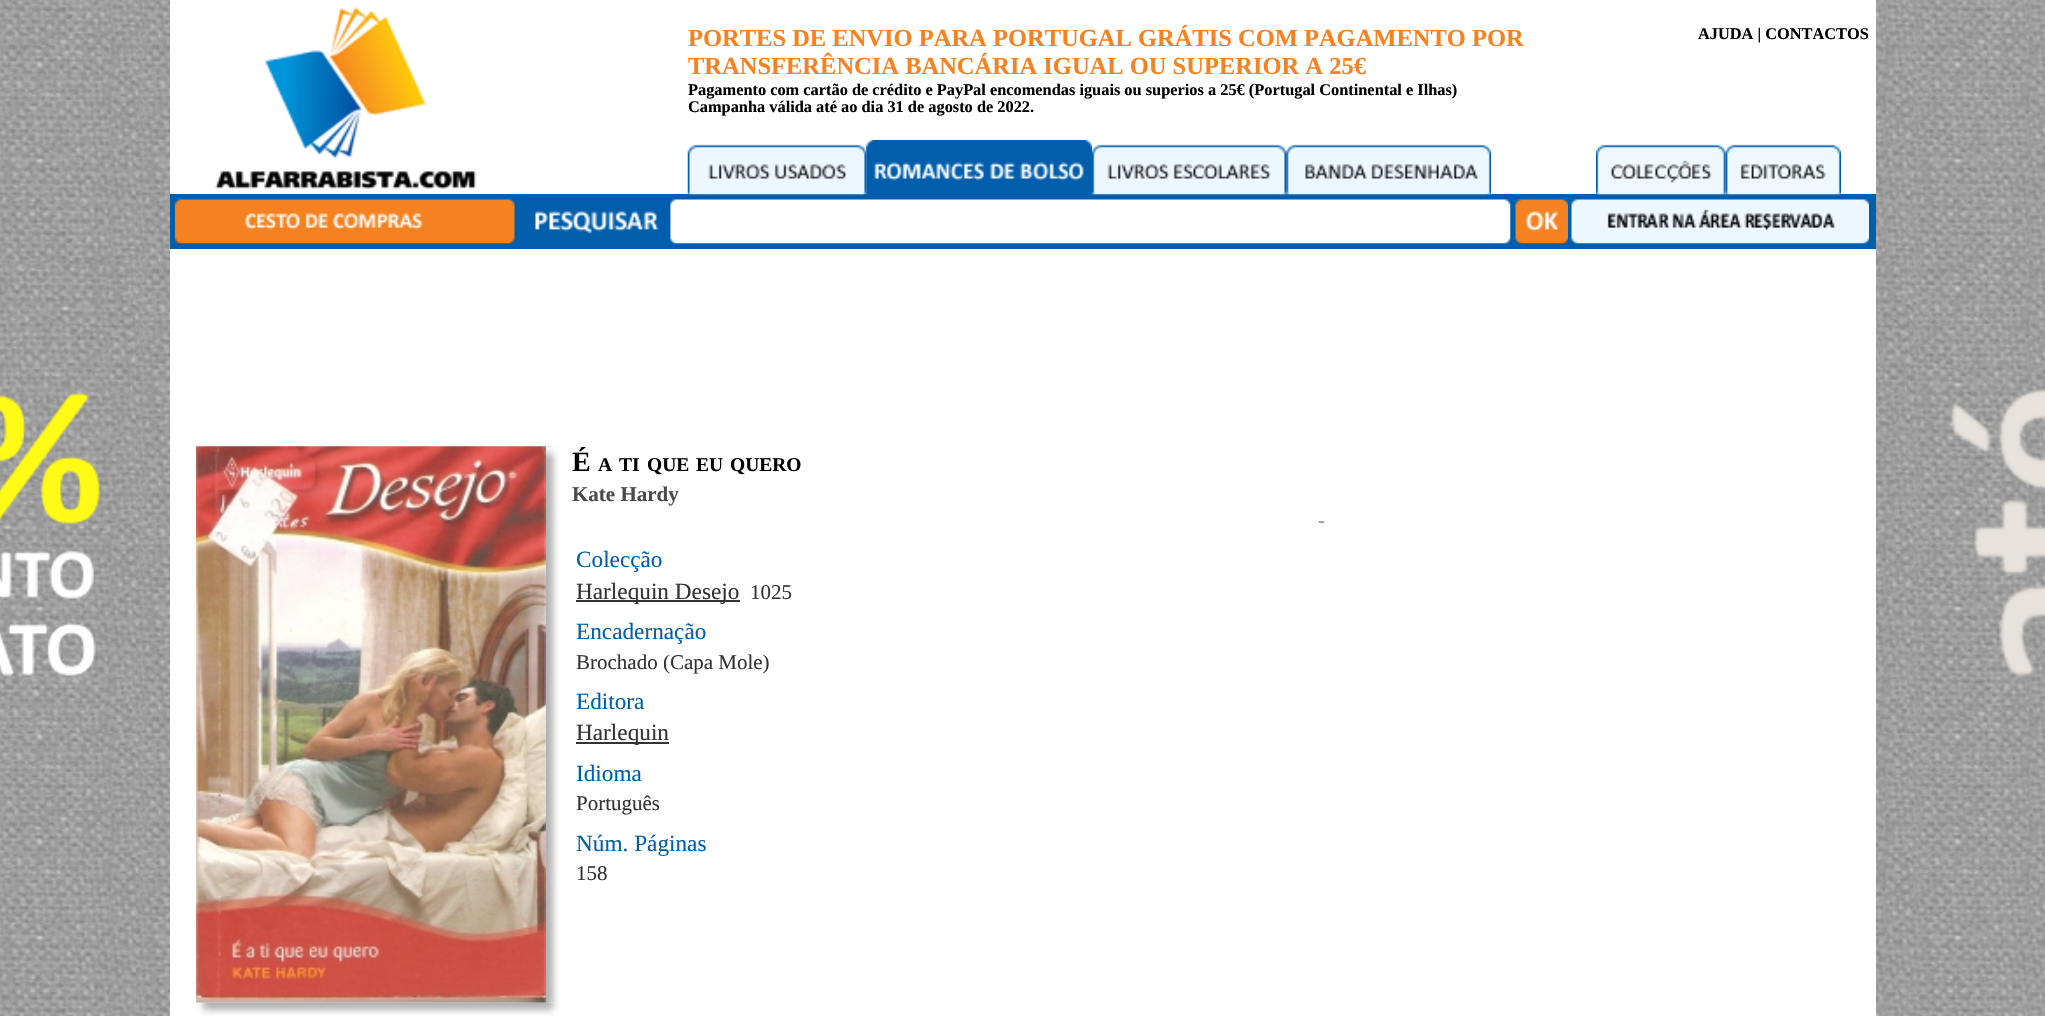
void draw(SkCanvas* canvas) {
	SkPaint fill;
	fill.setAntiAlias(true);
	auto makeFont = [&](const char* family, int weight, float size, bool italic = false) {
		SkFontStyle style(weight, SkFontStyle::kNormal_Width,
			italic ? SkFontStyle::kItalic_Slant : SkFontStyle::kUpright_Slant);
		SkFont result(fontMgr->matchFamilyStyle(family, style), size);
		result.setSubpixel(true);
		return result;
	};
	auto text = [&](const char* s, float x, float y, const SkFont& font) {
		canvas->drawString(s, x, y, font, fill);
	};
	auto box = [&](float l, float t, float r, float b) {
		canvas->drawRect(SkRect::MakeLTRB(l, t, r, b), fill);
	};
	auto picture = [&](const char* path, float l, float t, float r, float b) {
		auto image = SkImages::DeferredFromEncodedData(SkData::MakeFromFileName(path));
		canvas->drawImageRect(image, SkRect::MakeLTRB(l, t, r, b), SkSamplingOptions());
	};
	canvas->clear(0xFFFFFFFF);
	picture("image0.png", 0, 0, 2045, 1016);
	fill.setColor(0xFFFFFFFF);
	box(170, 0, 1876, 194);
	picture("image1.png", 215, 6, 477, 189);
	fill.setColor(0xFF005EAD);
	box(170, 194, 1876, 249);
	picture("image2.png", 687, 144, 867, 195);
	picture("image3.png", 866, 140, 1092, 194);
	picture("image4.png", 1092, 144, 1287, 195);
	picture("image5.png", 1286, 144, 1491, 195);
	picture("image6.png", 1596, 144, 1726, 195);
	picture("image7.png", 1725, 144, 1841, 195);
	picture("image8.png", 175, 199, 515, 244);
	picture("image10.png", 670, 199, 1511, 244);
	picture("image9.png", 535, 201, 671, 242);
	fill.setColor(0xFFFFFFFF);
	box(674, 241, 1507, 242);
	picture("image11.png", 1515, 199, 1568, 244);
	picture("image12.png", 1571, 199, 1869, 244);
	box(170, 249, 1876, 1016);
	picture("image13.png", 196, 446, 546, 1003);
	picture("image14.png", 546, 446, 559, 1003);
	picture("image15.png", 546, 446, 558, 459);
	picture("image16.png", 196, 1002, 559, 1016);
	fill.setColor(0xFF333333);
	box(576, 600, 740, 602);
	box(576, 742, 669, 744);
	auto font1 = makeFont("Liberation Serif", 700, 24.5f);
	fill.setColor(0xFFF78221);
	text("PORTES DE ENVIO PARA PORTUGAL GRÁTIS COM PAGAMENTO POR", 688, 46, font1);
	text("TRANSFERÊNCIA BANCÁRIA IGUAL OU SUPERIOR A 25€", 688, 74, font1);
	auto font2 = makeFont("Liberation Serif", 700, 16.35f);
	fill.setColor(0xFF000000);
	text("Pagamento com cartão de crédito e PayPal encomendas iguais ou superios a 25€ (Portugal Continental e Ilhas)", 688, 95, font2);
	text("Campanha válida até ao dia 31 de agosto de 2022.", 688, 112, font2);
	text("AJUDA | CONTACTOS", 1698, 39, font2);
	auto font3 = makeFont("Liberation Serif", 700, 28);
	text("É", 572, 471, font3);
	auto font4 = makeFont("Liberation Serif", 700, 19.5f);
	text("A", 598, 471, font4);
	text("TI", 619, 471, font4);
	text("QUE", 647, 471, font4);
	text("EU", 696, 471, font4);
	text("QUERO", 730, 471, font4);
	auto font5 = makeFont("Liberation Serif", 700, 21);
	fill.setColor(0xFF4B4B4B);
	text("Kate Hardy", 572, 501, font5);
	fill.setColor(0xFF999999);
	text("-", 1318, 527, font5);
	auto font6 = makeFont("Liberation Serif", 400, 23.25f);
	fill.setColor(0xFF005EAD);
	text("Colecção", 576, 567, font6);
	fill.setColor(0xFF333333);
	text("Harlequin Desejo", 576, 599, font6);
	auto font7 = makeFont("Liberation Serif", 400, 21);
	text("1025", 750, 599, font7);
	fill.setColor(0xFF005EAD);
	text("Encadernação", 576, 639, font6);
	fill.setColor(0xFF333333);
	text("Brochado (Capa Mole)", 576, 669, font7);
	fill.setColor(0xFF005EAD);
	text("Editora", 576, 709, font6);
	fill.setColor(0xFF333333);
	text("Harlequin", 576, 740, font6);
	fill.setColor(0xFF005EAD);
	text("Idioma", 576, 781, font6);
	fill.setColor(0xFF333333);
	text("Português", 576, 810, font7);
	fill.setColor(0xFF005EAD);
	text("Núm. Páginas", 576, 851, font6);
	fill.setColor(0xFF333333);
	text("158", 576, 880, font7);
}
